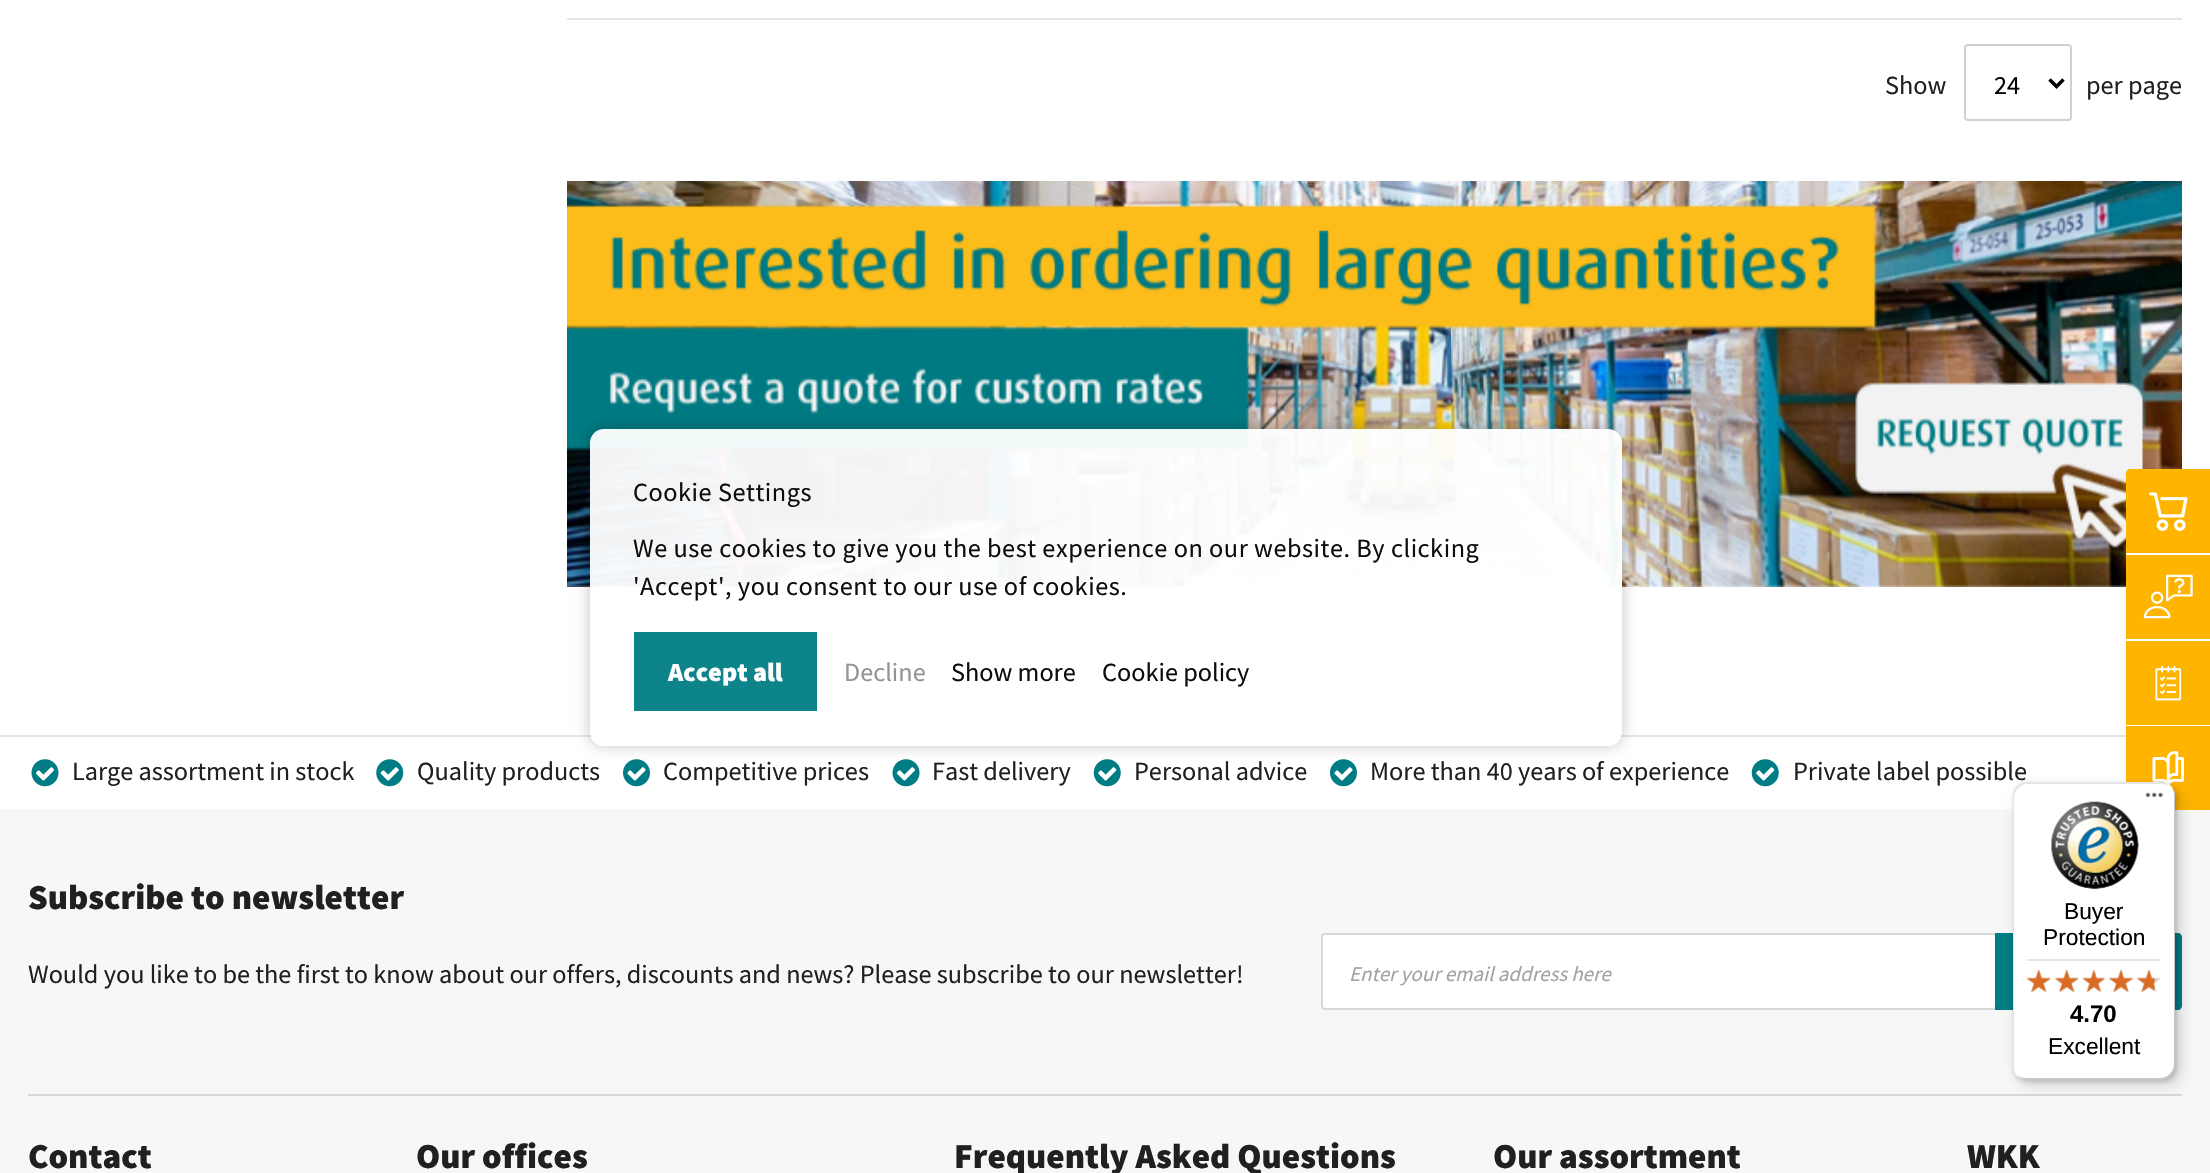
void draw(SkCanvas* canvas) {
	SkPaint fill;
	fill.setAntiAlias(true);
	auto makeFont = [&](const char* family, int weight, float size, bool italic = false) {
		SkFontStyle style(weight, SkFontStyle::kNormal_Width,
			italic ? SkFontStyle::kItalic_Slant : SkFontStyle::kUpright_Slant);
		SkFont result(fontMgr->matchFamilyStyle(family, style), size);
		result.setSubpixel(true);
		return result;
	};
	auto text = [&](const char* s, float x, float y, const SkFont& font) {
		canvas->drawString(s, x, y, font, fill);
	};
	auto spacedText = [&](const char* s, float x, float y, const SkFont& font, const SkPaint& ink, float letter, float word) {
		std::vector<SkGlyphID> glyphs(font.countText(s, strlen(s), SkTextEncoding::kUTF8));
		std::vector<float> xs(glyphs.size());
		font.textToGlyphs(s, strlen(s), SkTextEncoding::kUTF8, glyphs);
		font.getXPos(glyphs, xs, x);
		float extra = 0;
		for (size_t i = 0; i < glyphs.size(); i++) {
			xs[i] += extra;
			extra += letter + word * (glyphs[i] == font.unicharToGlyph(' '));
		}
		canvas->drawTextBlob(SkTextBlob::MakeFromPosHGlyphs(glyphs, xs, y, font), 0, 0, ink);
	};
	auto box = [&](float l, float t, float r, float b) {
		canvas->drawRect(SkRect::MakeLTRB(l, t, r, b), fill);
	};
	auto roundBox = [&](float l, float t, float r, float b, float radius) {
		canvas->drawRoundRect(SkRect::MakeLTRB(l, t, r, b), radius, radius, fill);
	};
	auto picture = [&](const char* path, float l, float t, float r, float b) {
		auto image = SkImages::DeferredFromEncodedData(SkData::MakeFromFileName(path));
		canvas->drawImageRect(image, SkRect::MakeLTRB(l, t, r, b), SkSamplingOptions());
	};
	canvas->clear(0xFFFFFFFF);
	fill.setColor(0xFFE5E5E5);
	box(567, 18, 2182, 20);
	fill.setStyle(SkPaint::kStroke_Style);
	fill.setStrokeWidth(2);
	fill.setColor(0xFFD2D2D2);
	canvas->drawRoundRect(SkRect::MakeLTRB(1965, 45, 2071, 120), 3, 3, fill);
	fill.setStrokeWidth(3.5f);
	fill.setColor(0xFF000000);
	canvas->drawPath(SkPathBuilder().moveTo(2049.5f, 79.5f).lineTo(2056.5f, 86.5f).lineTo(2063.5f, 79.5f).detach(), fill);
	picture("image0.png", 567, 181, 2182, 587);
	fill.setStyle(SkPaint::kFill_Style);
	fill.setColor(0xFFF7F7F7);
	box(0, 809, 2210, 1173);
	fill.setColor(0xFFE5E5E5);
	box(0, 735, 2126, 737);
	picture("image1.png", 31, 759, 59, 787);
	picture("image2.png", 376, 759, 404, 787);
	picture("image3.png", 623, 759, 650, 787);
	picture("image1.png", 892, 759, 920, 787);
	picture("image4.png", 1093, 759, 1121, 787);
	picture("image3.png", 1330, 759, 1357, 787);
	picture("image4.png", 1751, 759, 1779, 787);
	fill.setColor(0xFFD8D8D8);
	box(28, 1094, 2182, 1096);
	fill.setColor(0xFFFFFFFF);
	canvas->drawRoundRect(SkRect::MakeLTRB(1322, 934, 1996, 1009), 3, 3, fill);
	fill.setStyle(SkPaint::kStroke_Style);
	fill.setStrokeWidth(2);
	fill.setColor(0xFFD8D8D8);
	canvas->drawRoundRect(SkRect::MakeLTRB(1322, 934, 1996, 1009), 3, 3, fill);
	fill.setStyle(SkPaint::kFill_Style);
	fill.setColor(0xFF007C84);
	canvas->drawPath(SkPathBuilder().moveTo(1995, 933).lineTo(2178, 933).cubicTo(2180, 933, 2182, 935, 2182, 937).lineTo(2182, 1006).cubicTo(2182, 1008, 2180, 1010, 2178, 1010).lineTo(1995, 1010).close().detach(), fill);
	canvas->save();
	canvas->clipPath(SkPathBuilder(SkPathFillType::kEvenOdd).moveTo(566, 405).lineTo(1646, 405).lineTo(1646, 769).lineTo(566, 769).close().moveTo(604, 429).lineTo(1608, 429).cubicTo(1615.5f, 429, 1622, 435.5f, 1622, 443).lineTo(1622, 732).cubicTo(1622, 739.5f, 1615.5f, 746, 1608, 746).lineTo(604, 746).cubicTo(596.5f, 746, 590, 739.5f, 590, 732).lineTo(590, 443).cubicTo(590, 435.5f, 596.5f, 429, 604, 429).close().detach(), true);
	fill.setColor(0x30000000);
	fill.setMaskFilter(SkMaskFilter::MakeBlur(kNormal_SkBlurStyle, 7));
	canvas->drawRoundRect(SkRect::MakeLTRB(588, 427, 1624, 747), 16, 16, fill);
	fill.setMaskFilter(nullptr);
	canvas->restore();
	fill.setColor(0xF2FFFFFF);
	roundBox(590, 429, 1622, 746, 14);
	fill.setColor(0xFF0D838A);
	box(634, 632, 817, 711);
	fill.setColor(0xFFFFB400);
	canvas->drawPath(SkPathBuilder().moveTo(2130, 469).lineTo(2210, 469).lineTo(2210, 555).lineTo(2126, 555).lineTo(2126, 473).cubicTo(2126, 471, 2128, 469, 2130, 469).close().detach(), fill);
	fill.setColor(0xFFFFFFFF);
	box(2126, 553, 2210, 555);
	picture("image5.png", 2149, 492, 2188, 531);
	fill.setColor(0xFFFFB400);
	box(2126, 555, 2210, 639);
	picture("image6.png", 2143, 574, 2193, 619);
	box(2126, 641, 2210, 725);
	picture("image7.png", 2155, 666, 2182, 701);
	box(2126, 726, 2210, 810);
	picture("image8.png", 2152, 751, 2184, 786);
	fill.setColor(0x26000000);
	fill.setMaskFilter(SkMaskFilter::MakeBlur(kNormal_SkBlurStyle, 7));
	canvas->drawRoundRect(SkRect::MakeLTRB(2018, 788, 2181, 1085), 14, 14, fill);
	fill.setMaskFilter(nullptr);
	fill.setMaskFilter(SkMaskFilter::MakeBlur(kNormal_SkBlurStyle, 2));
	canvas->drawRoundRect(SkRect::MakeLTRB(2014, 784, 2177, 1082), 14, 14, fill);
	fill.setMaskFilter(nullptr);
	auto font1 = makeFont("Source Sans Pro", 400, 26.25f);
	fill.setColor(0xFF202020);
	text("Show", 1885, 94, font1);
	fill.setColor(0xFF000000);
	text("24", 1994, 94, font1);
	fill.setColor(0xFF202020);
	text("per page", 2086, 94, font1);
	text("Large assortment in stock", 72, 780, font1);
	text("Quality products", 417, 780, font1);
	text("Competitive prices", 663, 780, font1);
	text("Fast delivery", 932, 780, font1);
	text("Personal advice", 1134, 780, font1);
	text("More than 40 years of experience", 1370, 780, font1);
	text("Private label possible", 1793, 780, font1);
	auto font2 = makeFont("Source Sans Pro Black", 900, 35);
	text("Subscribe to newsletter", 28, 909, font2);
	text("Would you like to be the first to know about our offers, discounts and news? Please subscribe to our newsletter!", 28, 983, font1);
	auto font3 = makeFont("Source Sans Pro", 400, 21, true);
	fill.setColor(0xFFA2A2A2);
	text("Enter your email address here", 1349, 981, font3);
	fill.setColor(0xFF202020);
	text("Contact", 28, 1168, font2);
	text("Our offices", 416, 1168, font2);
	text("Frequently Asked Questions", 954, 1168, font2);
	text("Our assortment", 1493, 1168, font2);
	text("WKK", 1967, 1168, font2);
	auto font4 = makeFont("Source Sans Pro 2", 400, 26.25f);
	fill.setColor(0xFF0D0D0D);
	spacedText("Cookie Settings", 633, 501, font4, fill, 0.53f, 0);
	spacedText("We use cookies to give you the best experience on our website. By clicking", 633, 557, font1, fill, 0.53f, 0);
	spacedText("'Accept', you consent to our use of cookies.", 633, 595, font1, fill, 0.53f, 0);
	auto font5 = makeFont("Source Sans Pro Black", 900, 26.25f);
	fill.setColor(0xFFFFFFFF);
	text("Accept all", 668, 681, font5);
	fill.setColor(0xFF949494);
	text("Decline", 844, 681, font1);
	fill.setColor(0xFF0D0D0D);
	text("Show more", 951, 681, font1);
	text("Cookie policy", 1102, 681, font1);
	fill.setColor(0xFFFFFFFF);
	roundBox(2013, 782, 2175, 1080, 14);
	fill.setColor(0x1A000000);
	canvas->drawPath(SkPathBuilder().moveTo(2028, 784).lineTo(2163, 784).cubicTo(2166, 784, 2169, 785, 2171, 787).cubicTo(2169, 784, 2165, 782, 2161, 782).lineTo(2027, 782).cubicTo(2019, 782, 2013, 788, 2013, 796).lineTo(2013, 1066).cubicTo(2013, 1069, 2014, 1072, 2016, 1075).cubicTo(2015, 1073, 2014, 1070, 2014, 1068).lineTo(2014, 798).cubicTo(2014, 790, 2021, 784, 2028, 784).close().detach(), fill);
	fill.setColor(0x33000000);
	canvas->drawPath(SkPathBuilder().moveTo(2017, 1075).cubicTo(2019, 1078, 2023, 1080, 2027, 1080).lineTo(2161, 1080).cubicTo(2169, 1080, 2175, 1074, 2175, 1066).lineTo(2175, 796).cubicTo(2175, 793, 2174, 790, 2172, 787).cubicTo(2173, 789, 2174, 792, 2174, 794).lineTo(2174, 1064).cubicTo(2174, 1072, 2167, 1078, 2160, 1078).lineTo(2025, 1078).cubicTo(2022, 1078, 2019, 1077, 2017, 1075).close().detach(), fill);
	fill.setColor(0x33323232);
	canvas->drawPath(SkPathBuilder().moveTo(2018, 1077).cubicTo(2021, 1079, 2024, 1080, 2027, 1080).lineTo(2161, 1080).cubicTo(2169, 1080, 2175, 1074, 2175, 1066).lineTo(2175, 796).cubicTo(2175, 792, 2174, 789, 2171, 787).cubicTo(2173, 789, 2174, 792, 2174, 795).lineTo(2174, 1065).cubicTo(2174, 1072, 2168, 1079, 2160, 1079).lineTo(2025, 1079).cubicTo(2023, 1079, 2020, 1078, 2018, 1077).close().detach(), fill);
	fill.setColor(0x4DFFFFFF);
	canvas->drawPath(SkPathBuilder().moveTo(2018, 1076).cubicTo(2020, 1079, 2023, 1080, 2027, 1080).lineTo(2161, 1080).cubicTo(2169, 1080, 2175, 1074, 2175, 1066).lineTo(2175, 796).cubicTo(2175, 791, 2173, 787, 2170, 785).cubicTo(2172, 788, 2174, 791, 2174, 795).lineTo(2174, 1065).cubicTo(2174, 1073, 2168, 1079, 2160, 1079).lineTo(2026, 1079).cubicTo(2023, 1079, 2020, 1078, 2018, 1076).close().detach(), fill);
	picture("image9.png", 2145, 792, 2163, 797);
	picture("image10.png", 2051, 801, 2139, 889);
	auto font6 = makeFont("Liberation Sans", 400, 22.75f);
	fill.setColor(0xFF000000);
	text("Buyer", 2064, 919, font6);
	text("Protection", 2043, 945, font6);
	fill.setColor(0xFFE5E5E5);
	box(2027, 959, 2161, 961);
	picture("image11.png", 2026, 970, 2051, 992);
	picture("image12.png", 2055, 969, 2079, 992);
	picture("image13.png", 2082, 970, 2105, 992);
	picture("image14.png", 2109, 969, 2133, 992);
	picture("image15.png", 2137, 970, 2161, 992);
	picture("image16.png", 2026, 969, 2051, 993);
	picture("image17.png", 2054, 969, 2079, 993);
	picture("image18.png", 2082, 969, 2106, 993);
	picture("image19.png", 2108, 969, 2133, 993);
	picture("image20.png", 2136, 969, 2155, 993);
	auto font7 = makeFont("Liberation Sans", 700, 24);
	fill.setColor(0xFF000000);
	text("4.70", 2070, 1022, font7);
	text("Excellent", 2048, 1054, font6);
}
